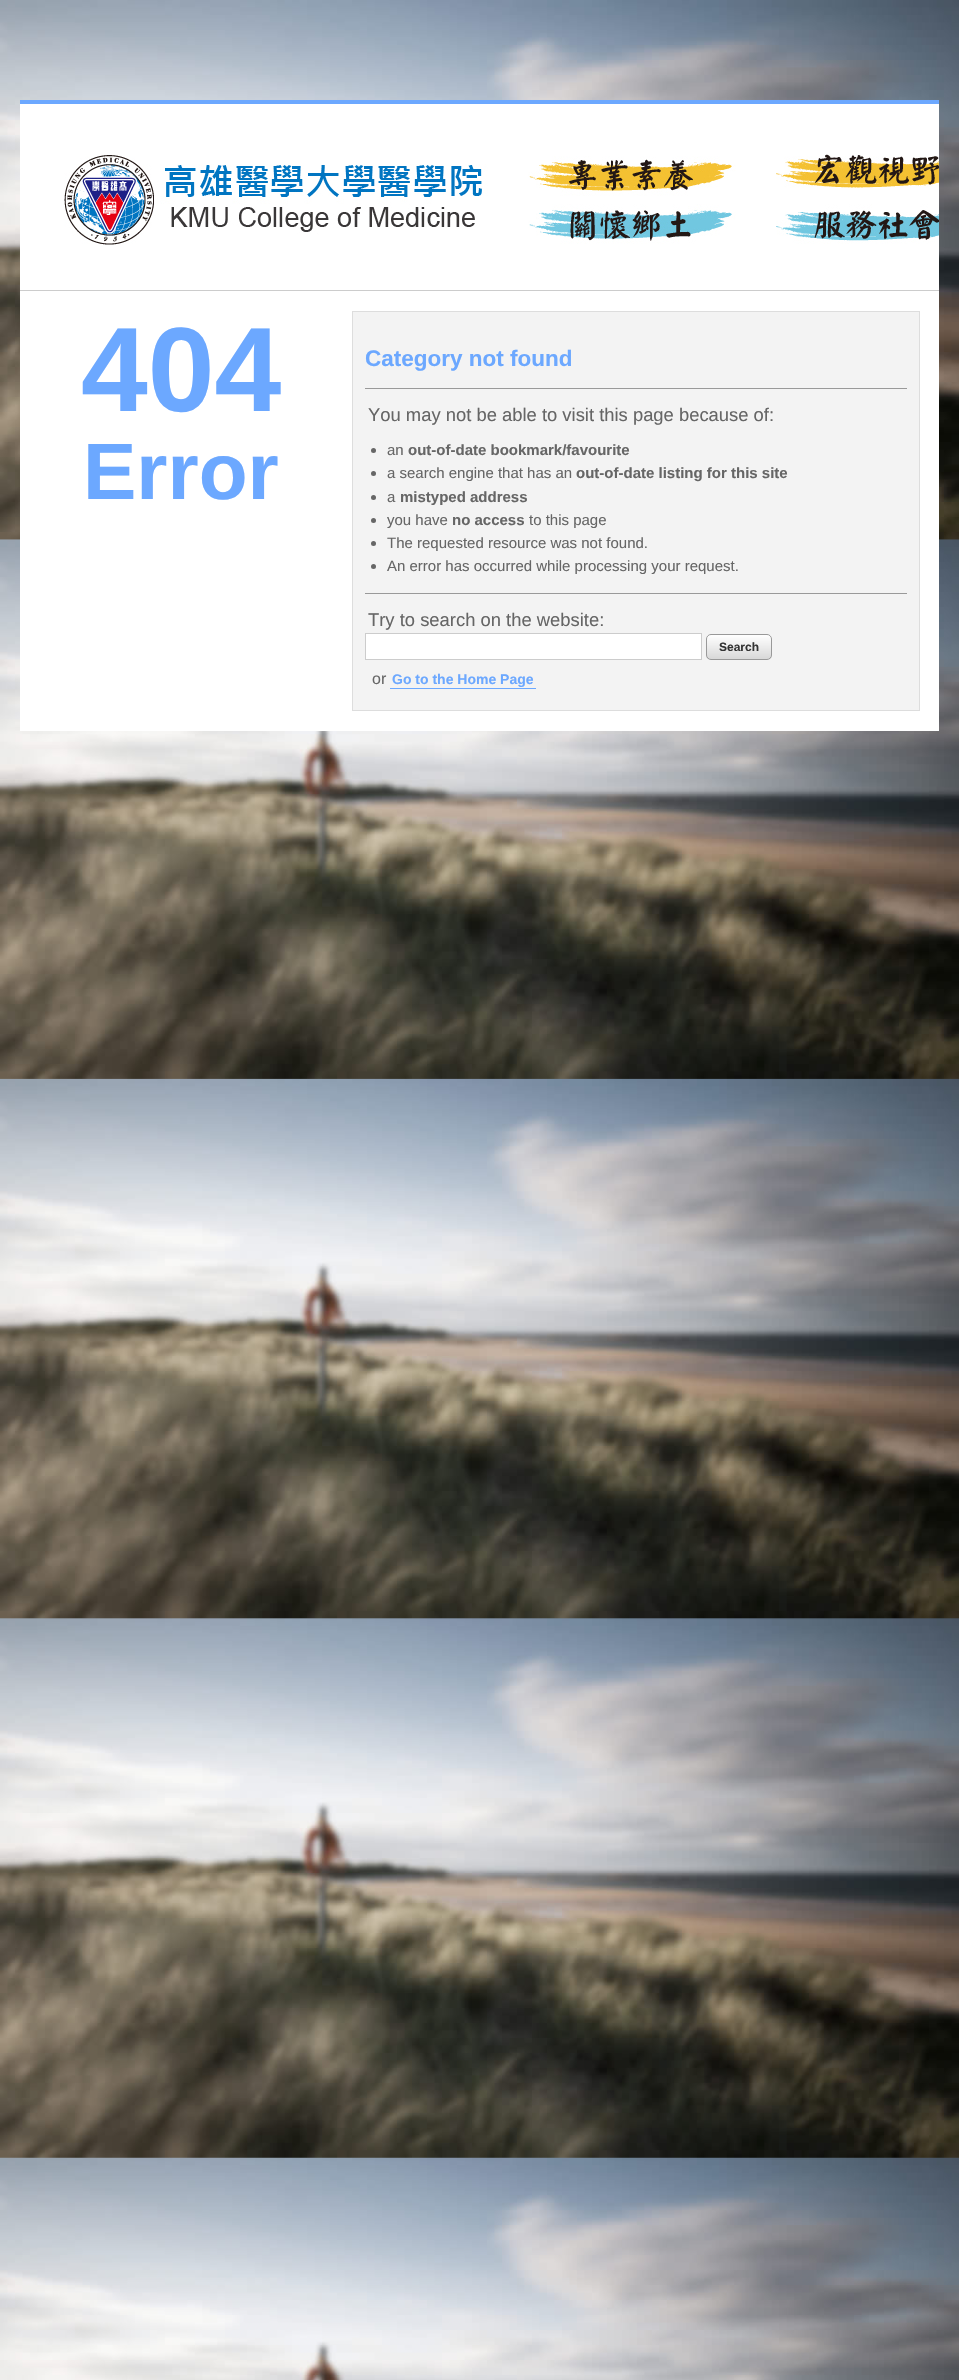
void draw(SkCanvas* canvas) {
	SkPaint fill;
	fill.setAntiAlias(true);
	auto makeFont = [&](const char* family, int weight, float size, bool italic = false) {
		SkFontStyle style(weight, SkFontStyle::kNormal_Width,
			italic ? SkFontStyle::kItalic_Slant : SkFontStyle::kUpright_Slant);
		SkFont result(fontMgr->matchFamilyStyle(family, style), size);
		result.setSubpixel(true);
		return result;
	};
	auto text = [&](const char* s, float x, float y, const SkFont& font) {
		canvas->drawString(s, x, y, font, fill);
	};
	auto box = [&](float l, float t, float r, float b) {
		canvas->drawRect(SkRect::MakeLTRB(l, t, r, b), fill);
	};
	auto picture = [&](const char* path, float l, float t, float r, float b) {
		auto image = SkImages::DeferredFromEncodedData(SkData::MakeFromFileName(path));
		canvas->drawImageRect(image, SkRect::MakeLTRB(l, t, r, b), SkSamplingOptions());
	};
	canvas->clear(0xFFFFFFFF);
	picture("image0.png", 0, 0, 959, 2380);
	fill.setColor(0xFFFFFFFF);
	box(20, 104, 939, 731);
	fill.setColor(0xFF6CA8FF);
	box(20, 100, 939, 104);
	fill.setColor(0xFFCCCCCC);
	box(20, 290, 939, 291);
	picture("image1.png", 64, 154, 939, 245);
	fill.setColor(0xFFF3F3F3);
	canvas->drawRect(SkRect::MakeLTRB(352.5f, 311.5f, 919.5f, 710.5f), fill);
	fill.setStyle(SkPaint::kStroke_Style);
	fill.setStrokeWidth(1);
	fill.setColor(0xFFDDDDDD);
	canvas->drawRect(SkRect::MakeLTRB(352.5f, 311.5f, 919.5f, 710.5f), fill);
	fill.setStyle(SkPaint::kFill_Style);
	fill.setColor(0xFF999999);
	box(365, 388, 907, 389);
	fill.setColor(0xFF666666);
	canvas->drawCircle(373.5f, 450.5f, 2.5f, fill);
	canvas->drawCircle(373.5f, 473.5f, 2.5f, fill);
	canvas->drawCircle(373.5f, 497.5f, 2.5f, fill);
	canvas->drawCircle(373.5f, 520.5f, 2.5f, fill);
	canvas->drawCircle(373.5f, 543.5f, 2.5f, fill);
	canvas->drawCircle(373.5f, 566.5f, 2.5f, fill);
	fill.setColor(0xFF999999);
	box(365, 593, 907, 594);
	fill.setColor(0xFFFFFFFF);
	canvas->drawRect(SkRect::MakeLTRB(365.5f, 633.5f, 701.5f, 659.5f), fill);
	fill.setStyle(SkPaint::kStroke_Style);
	fill.setColor(0xFFCCCCCC);
	canvas->drawRect(SkRect::MakeLTRB(365.5f, 633.5f, 701.5f, 659.5f), fill);
	canvas->save();
	canvas->clipPath(SkPathBuilder().moveTo(711, 634).lineTo(767, 634).cubicTo(770, 634, 772, 636, 772, 639).lineTo(772, 655).cubicTo(772, 658, 770, 660, 767, 660).lineTo(711, 660).cubicTo(708, 660, 706, 658, 706, 655).lineTo(706, 639).cubicTo(706, 636, 708, 634, 711, 634).close().detach(), true);
	fill.setStyle(SkPaint::kFill_Style);
	{
		const SkColor colors[] = {0xFFFFFFFF, 0xFFD8D8D8};
		const float stops[] = {0, 1};
		const SkPoint ends[] = {{739, 635}, {739, 659}};
		fill.setShader(SkGradientShader::MakeLinear(ends, colors, stops, 2, SkTileMode::kClamp));
		fill.setAlpha(255);
	}
	box(706, 635, 772, 659);
	canvas->restore();
	fill.setStyle(SkPaint::kStroke_Style);
	fill.setShader(nullptr);
	fill.setColor(0xFF999999);
	canvas->drawRoundRect(SkRect::MakeLTRB(706.5f, 634.5f, 771.5f, 659.5f), 4.5f, 4.5f, fill);
	fill.setStyle(SkPaint::kFill_Style);
	fill.setColor(0xFF6CA8FF);
	box(390, 688, 536, 689);
	auto font1 = makeFont("Liberation Sans", 700, 120);
	text("404", 81, 411, font1);
	auto font2 = makeFont("Liberation Sans", 700, 80);
	text("Error", 83, 499, font2);
	auto font3 = makeFont("Liberation Sans", 700, 22.5f);
	text("Category not found", 365, 366, font3);
	auto font4 = makeFont("Liberation Sans", 400, 18.4f);
	fill.setColor(0xFF666666);
	text("You may not be able to visit this page because of:", 368, 421, font4);
	auto font5 = makeFont("Liberation Sans", 400, 15);
	text("an", 387, 455, font5);
	auto font6 = makeFont("Liberation Sans", 700, 15);
	text("out-of-date bookmark/favourite", 408, 455, font6);
	text("a search engine that has an", 387, 478, font5);
	text("out-of-date listing for this site", 576, 478, font6);
	text("a", 387, 502, font5);
	text("mistyped address", 400, 502, font6);
	text("you have", 387, 525, font5);
	text("no access", 452, 525, font6);
	text("to this page", 529, 525, font5);
	text("The requested resource was not found.", 387, 548, font5);
	text("An error has occurred while processing your request.", 387, 571, font5);
	text("Try to search on the website:", 368, 626, font4);
	auto font7 = makeFont("Liberation Sans", 700, 12);
	fill.setColor(0xFF333333);
	text("Search", 719, 651, font7);
	auto font8 = makeFont("Liberation Sans", 400, 16);
	fill.setColor(0xFF666666);
	text("or", 372, 684, font8);
	auto font9 = makeFont("Liberation Sans", 700, 14);
	fill.setColor(0xFF6CA8FF);
	text("Go to the Home Page", 392, 684, font9);
}
